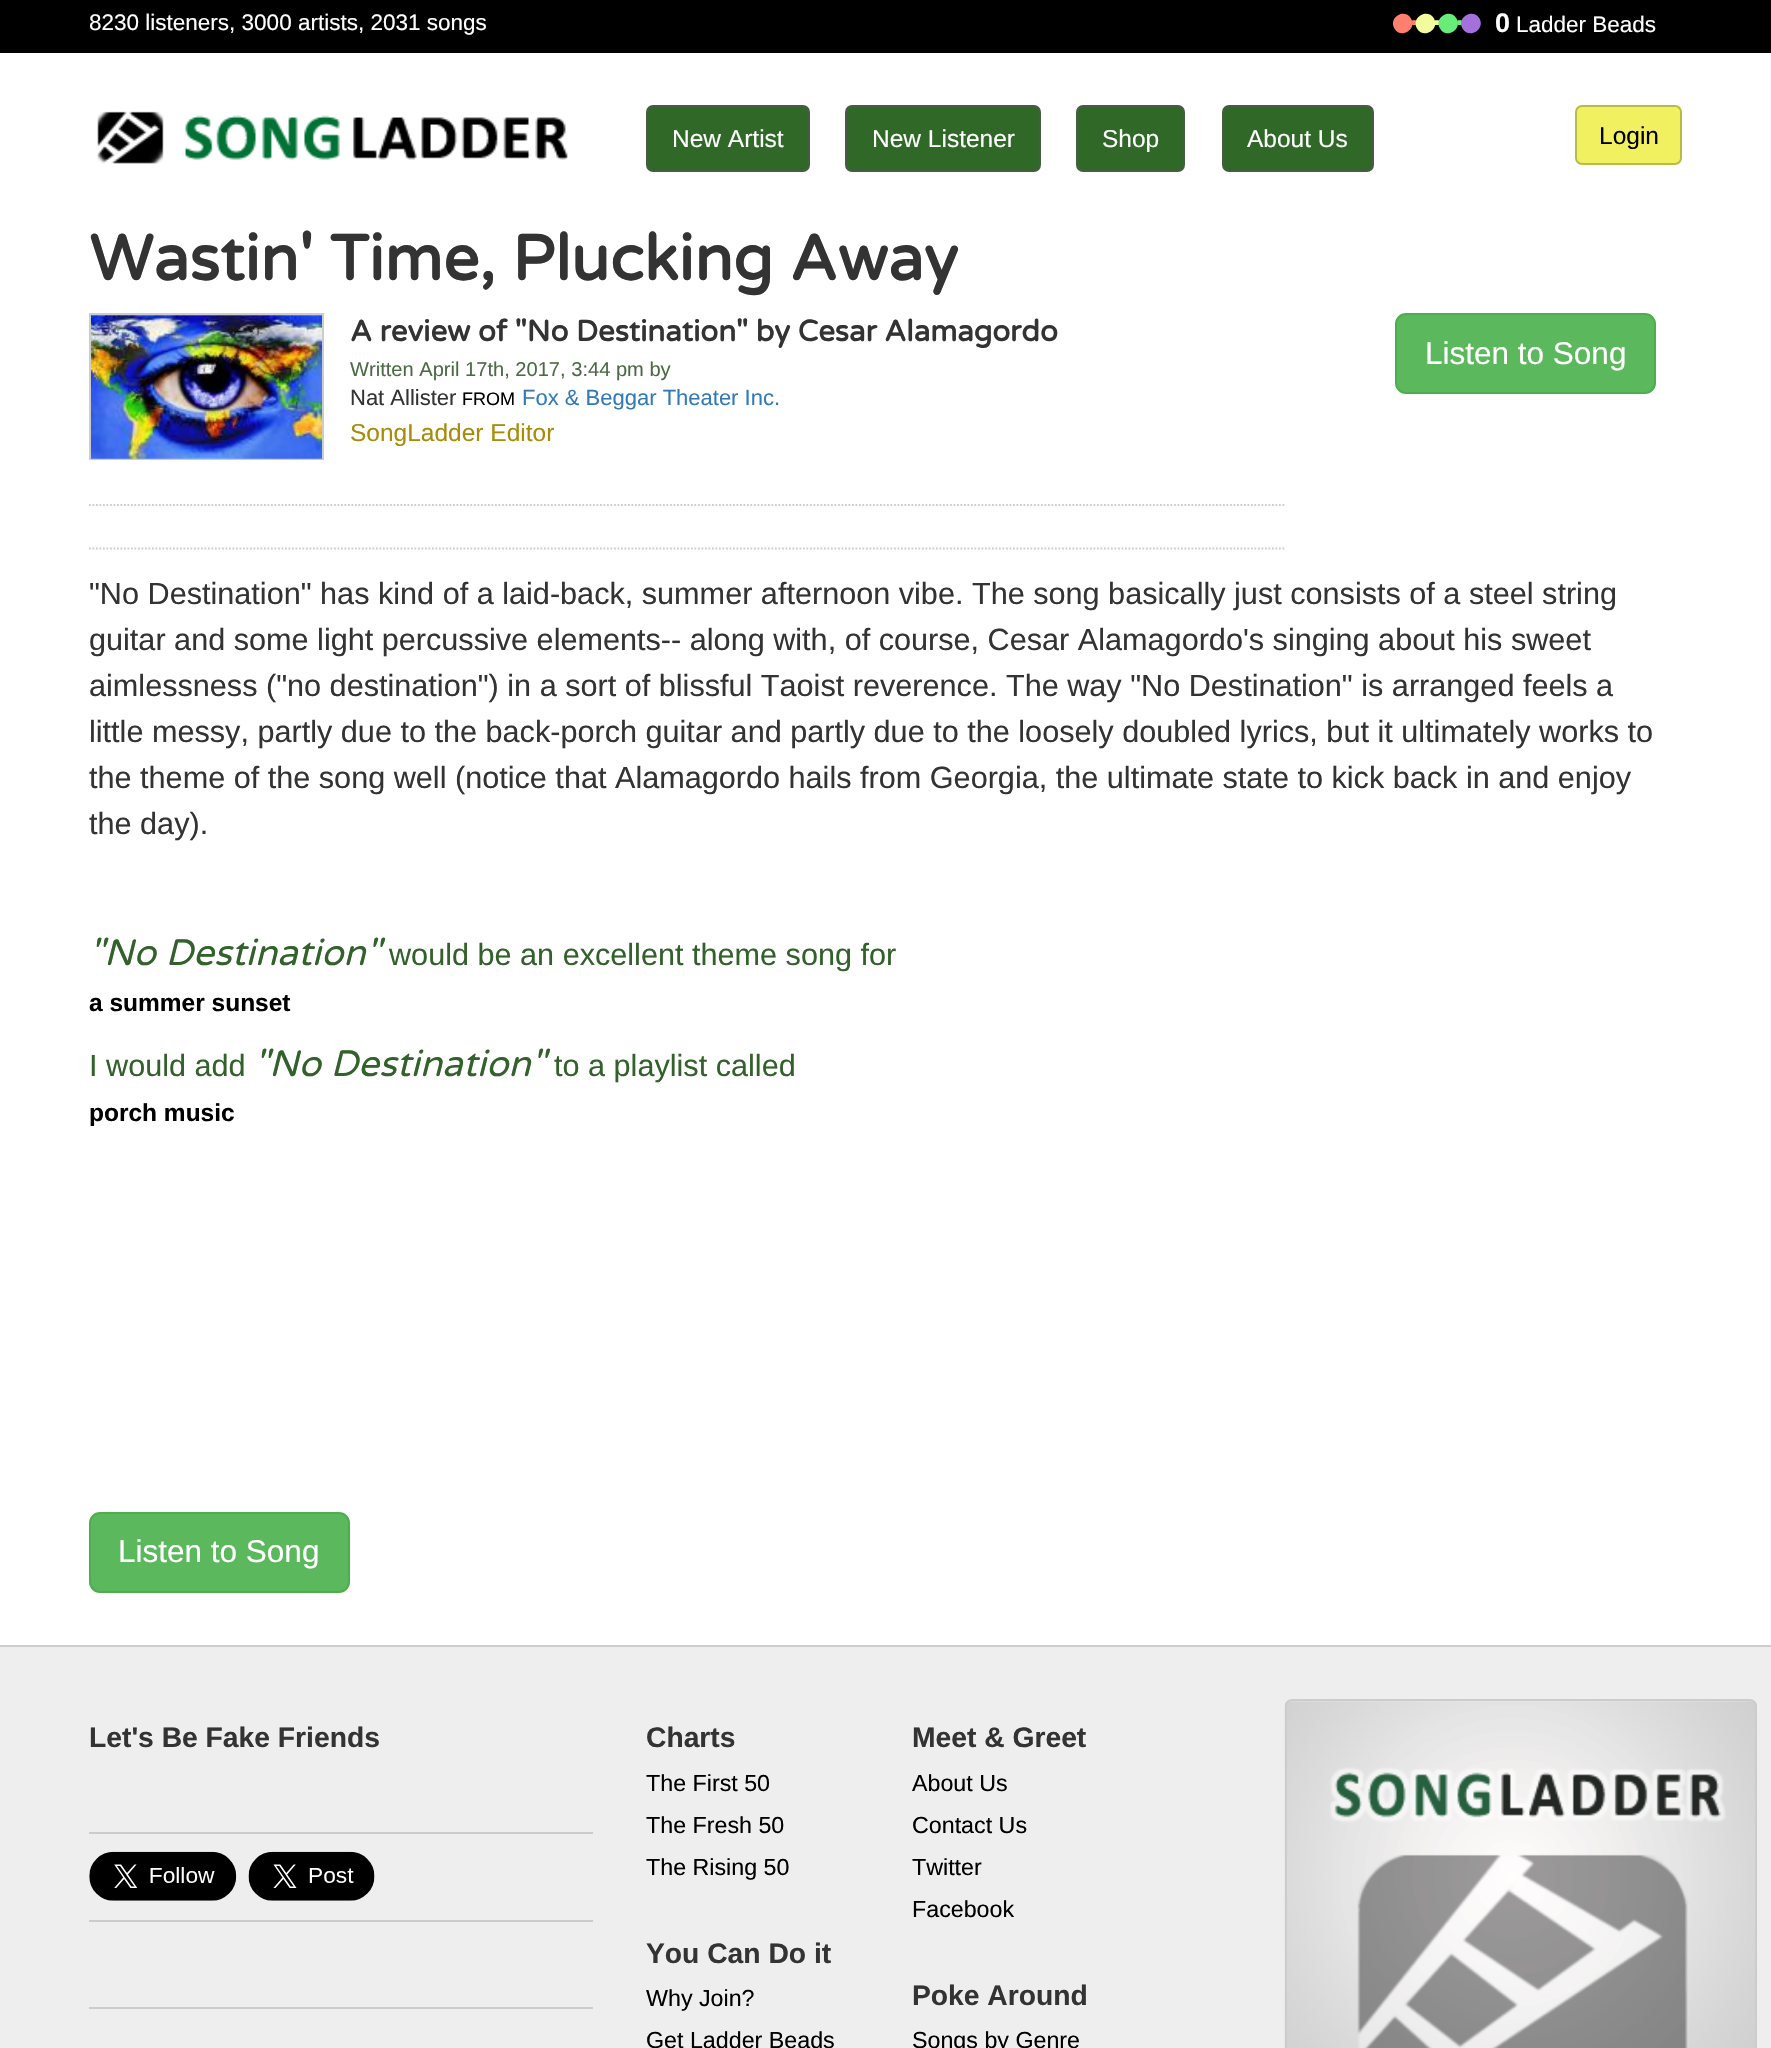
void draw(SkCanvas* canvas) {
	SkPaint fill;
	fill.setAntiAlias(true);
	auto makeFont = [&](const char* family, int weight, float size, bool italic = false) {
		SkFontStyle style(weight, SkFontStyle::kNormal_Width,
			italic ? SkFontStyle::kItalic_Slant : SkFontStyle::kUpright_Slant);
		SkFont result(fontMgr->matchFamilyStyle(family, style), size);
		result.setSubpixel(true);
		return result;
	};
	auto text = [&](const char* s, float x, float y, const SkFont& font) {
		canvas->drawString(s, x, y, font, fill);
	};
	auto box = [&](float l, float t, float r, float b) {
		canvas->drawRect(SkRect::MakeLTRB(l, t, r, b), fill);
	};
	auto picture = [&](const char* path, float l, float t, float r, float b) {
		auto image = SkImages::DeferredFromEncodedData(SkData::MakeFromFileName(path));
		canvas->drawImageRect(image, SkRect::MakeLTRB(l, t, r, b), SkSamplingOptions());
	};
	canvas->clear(0xFFFFFFFF);
	fill.setColor(0xFF000000);
	box(0, 0, 1771, 53);
	fill.setColor(0xFFFC806D);
	canvas->drawPath(SkPathBuilder().moveTo(1411, 18.5f).cubicTo(1417.5f, 29.5f, 1400.5f, 39.5f, 1394.5f, 28.5f).cubicTo(1388, 17.5f, 1404.5f, 7.5f, 1411, 18.5f).close().detach(), fill);
	picture("image0.png", 1412, 20, 1417, 26);
	fill.setColor(0xFFF3FC9D);
	canvas->drawPath(SkPathBuilder().moveTo(1434, 18.5f).cubicTo(1440, 29.5f, 1423.5f, 39.5f, 1417, 28.5f).cubicTo(1410.5f, 17.5f, 1427.5f, 7.5f, 1434, 18.5f).close().detach(), fill);
	picture("image1.png", 1434, 20, 1440, 26);
	fill.setColor(0xFF68ED78);
	canvas->drawPath(SkPathBuilder().moveTo(1456.5f, 18.5f).cubicTo(1463, 29.5f, 1446, 39.5f, 1440, 28.5f).cubicTo(1433.5f, 17.5f, 1450, 7.5f, 1456.5f, 18.5f).close().detach(), fill);
	picture("image2.png", 1457, 20, 1462, 26);
	fill.setColor(0xFFA470DB);
	canvas->drawPath(SkPathBuilder().moveTo(1479.5f, 18.5f).cubicTo(1485.5f, 29.5f, 1469, 39.5f, 1462.5f, 28.5f).cubicTo(1456, 17.5f, 1473, 7.5f, 1479.5f, 18.5f).close().detach(), fill);
	picture("image3.png", 97, 111, 568, 164);
	fill.setColor(0xFF306927);
	canvas->drawRoundRect(SkRect::MakeLTRB(647, 106, 809, 171), 6, 6, fill);
	fill.setStyle(SkPaint::kStroke_Style);
	fill.setStrokeWidth(2);
	fill.setColor(0xFF485C45);
	canvas->drawRoundRect(SkRect::MakeLTRB(647, 106, 809, 171), 6, 6, fill);
	fill.setStyle(SkPaint::kFill_Style);
	fill.setColor(0xFF306927);
	canvas->drawRoundRect(SkRect::MakeLTRB(846, 106, 1040, 171), 6, 6, fill);
	fill.setStyle(SkPaint::kStroke_Style);
	fill.setColor(0xFF485C45);
	canvas->drawRoundRect(SkRect::MakeLTRB(846, 106, 1040, 171), 6, 6, fill);
	fill.setStyle(SkPaint::kFill_Style);
	fill.setColor(0xFF306927);
	canvas->drawRoundRect(SkRect::MakeLTRB(1077, 106, 1184, 171), 6, 6, fill);
	fill.setStyle(SkPaint::kStroke_Style);
	fill.setColor(0xFF485C45);
	canvas->drawRoundRect(SkRect::MakeLTRB(1077, 106, 1184, 171), 6, 6, fill);
	fill.setStyle(SkPaint::kFill_Style);
	fill.setColor(0xFF306927);
	canvas->drawRoundRect(SkRect::MakeLTRB(1223, 106, 1373, 171), 6, 6, fill);
	fill.setStyle(SkPaint::kStroke_Style);
	fill.setColor(0xFF485C45);
	canvas->drawRoundRect(SkRect::MakeLTRB(1223, 106, 1373, 171), 6, 6, fill);
	fill.setStyle(SkPaint::kFill_Style);
	fill.setColor(0xFFF0F060);
	canvas->drawRoundRect(SkRect::MakeLTRB(1576, 106, 1681, 164), 6, 6, fill);
	fill.setStyle(SkPaint::kStroke_Style);
	fill.setColor(0xFFBABA47);
	canvas->drawRoundRect(SkRect::MakeLTRB(1576, 106, 1681, 164), 6, 6, fill);
	fill.setColor(0xFFCCCCCC);
	canvas->drawRect(SkRect::MakeLTRB(90, 314, 323, 459), fill);
	picture("image4.png", 91, 315, 322, 459);
	fill.setStyle(SkPaint::kFill_Style);
	fill.setColor(0xFF5CB85C);
	canvas->drawRoundRect(SkRect::MakeLTRB(1396, 314, 1655, 393), 10, 10, fill);
	fill.setStyle(SkPaint::kStroke_Style);
	fill.setColor(0xFF4CAE4C);
	canvas->drawRoundRect(SkRect::MakeLTRB(1396, 314, 1655, 393), 10, 10, fill);
	fill.setStrokeWidth(1.8f);
	fill.setColor(0xFFCCCCCC);
	fill.setPathEffect(SkDashPathEffect::Make({{1.75f, 1.75f}}, 0));
	canvas->drawPath(SkPathBuilder().moveTo(89, 505).lineTo(1284.5f, 505).detach(), fill);
	fill.setPathEffect(nullptr);
	fill.setPathEffect(SkDashPathEffect::Make({{1.75f, 1.75f}}, 0));
	canvas->drawPath(SkPathBuilder().moveTo(89, 548.5f).lineTo(1284.5f, 548.5f).detach(), fill);
	fill.setPathEffect(nullptr);
	fill.setStyle(SkPaint::kFill_Style);
	fill.setColor(0xFF5CB85C);
	canvas->drawRoundRect(SkRect::MakeLTRB(90, 1513, 349, 1592), 10, 10, fill);
	fill.setStyle(SkPaint::kStroke_Style);
	fill.setStrokeWidth(2);
	fill.setColor(0xFF4CAE4C);
	canvas->drawRoundRect(SkRect::MakeLTRB(90, 1513, 349, 1592), 10, 10, fill);
	fill.setStyle(SkPaint::kFill_Style);
	fill.setColor(0xFFEEEEEE);
	box(0, 1647, 1771, 2048);
	fill.setColor(0xFFCCCCCC);
	box(0, 1645, 1771, 1647);
	box(89, 1832, 593, 1834);
	box(89, 1920, 593, 1922);
	picture("image5.png", 89, 1851, 237, 1901);
	picture("image6.png", 248, 1851, 375, 1901);
	box(89, 2007, 593, 2009);
	picture("image7.png", 1284, 1701, 1757, 2048);
	fill.setStyle(SkPaint::kStroke_Style);
	canvas->drawRoundRect(SkRect::MakeLTRB(1286, 1700, 1756, 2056), 6, 6, fill);
	auto font1 = makeFont("Liberation Sans", 400, 22.5f);
	fill.setStyle(SkPaint::kFill_Style);
	fill.setColor(0xFFFFFFFF);
	text("8230 listeners, 3000 artists, 2031 songs", 89, 30, font1);
	auto font2 = makeFont("Liberation Sans", 700, 27);
	text("0", 1495, 32, font2);
	text("Ladder Beads", 1516, 32, font1);
	auto font3 = makeFont("Liberation Sans", 400, 24.5f);
	text("New Artist", 672, 147, font3);
	text("New Listener", 872, 147, font3);
	text("Shop", 1102, 147, font3);
	text("About Us", 1247, 147, font3);
	fill.setColor(0xFF000000);
	text("Login", 1599, 144, font3);
	auto font4 = makeFont("Varela Round", 700, 63.75f);
	fill.setColor(0xFF333333);
	text("Wastin' Time, Plucking Away", 89, 280, font4);
	auto font5 = makeFont("Varela Round", 700, 29.4f);
	text("A review of \"No Destination\" by Cesar Alamagordo", 350, 341, font5);
	auto font6 = makeFont("Liberation Sans", 400, 20.1f);
	fill.setColor(0xFF4B6B45);
	text("Written April 17th, 2017, 3:44 pm by", 350, 376, font6);
	auto font7 = makeFont("Liberation Sans", 400, 22);
	fill.setColor(0xFF333333);
	text("Nat Allister", 350, 405, font7);
	auto font8 = makeFont("Liberation Sans", 400, 18);
	fill.setColor(0xFF000000);
	text("FROM", 462, 405, font8);
	fill.setColor(0xFF337AB7);
	text("Fox & Beggar Theater Inc.", 522, 405, font7);
	fill.setColor(0xFFA88B07);
	text("SongLadder Editor", 350, 441, font3);
	auto font9 = makeFont("Liberation Sans", 400, 31.5f);
	fill.setColor(0xFFFFFFFF);
	text("Listen to Song", 1425, 364, font9);
	auto font10 = makeFont("Liberation Sans", 400, 30.62f);
	fill.setColor(0xFF333333);
	text("\"No Destination\" has kind of a laid-back, summer afternoon vibe. The song basically just consists of a steel string", 89, 604, font10);
	text("guitar and some light percussive elements-- along with, of course, Cesar Alamagordo's singing about his sweet", 89, 650, font10);
	text("aimlessness (\"no destination\") in a sort of blissful Taoist reverence. The way \"No Destination\" is arranged feels a", 89, 696, font10);
	text("little messy, partly due to the back-porch guitar and partly due to the loosely doubled lyrics, but it ultimately works to", 89, 742, font10);
	text("the theme of the song well (notice that Alamagordo hails from Georgia, the ultimate state to kick back in and enjoy", 89, 788, font10);
	text("the day).", 89, 834, font10);
	auto font11 = makeFont("Varela Round", 400, 36.75f, true);
	fill.setColor(0xFF33612B);
	text("\"No Destination\"", 89, 965, font11);
	text("would be an excellent theme song for", 389, 965, font10);
	auto font12 = makeFont("Liberation Sans", 700, 24.5f);
	fill.setColor(0xFF000000);
	text("a summer sunset", 89, 1011, font12);
	fill.setColor(0xFF33612B);
	text("I would add", 89, 1076, font10);
	text("\"No Destination\"", 254, 1076, font11);
	text("to a playlist called", 554, 1076, font10);
	fill.setColor(0xFF000000);
	text("porch music", 89, 1121, font12);
	fill.setColor(0xFFFFFFFF);
	text("Listen to Song", 118, 1562, font9);
	auto font13 = makeFont("Liberation Sans", 700, 28.25f);
	fill.setColor(0xFF333333);
	text("Let's Be Fake Friends", 89, 1747, font13);
	text("Charts", 646, 1747, font13);
	auto font14 = makeFont("Liberation Sans", 400, 23.25f);
	fill.setColor(0xFF000000);
	text("The First 50", 646, 1791, font14);
	text("The Fresh 50", 646, 1833, font14);
	text("The Rising 50", 646, 1875, font14);
	fill.setColor(0xFF333333);
	text("You Can Do it", 646, 1963, font13);
	fill.setColor(0xFF000000);
	text("Why Join?", 646, 2006, font14);
	text("Get Ladder Beads", 646, 2048, font14);
	fill.setColor(0xFF333333);
	text("Meet & Greet", 912, 1747, font13);
	fill.setColor(0xFF000000);
	text("About Us", 912, 1791, font14);
	text("Contact Us", 912, 1833, font14);
	text("Twitter", 912, 1875, font14);
	text("Facebook", 912, 1917, font14);
	fill.setColor(0xFF333333);
	text("Poke Around", 912, 2005, font13);
	fill.setColor(0xFF000000);
	text("Songs by Genre", 912, 2048, font14);
}
